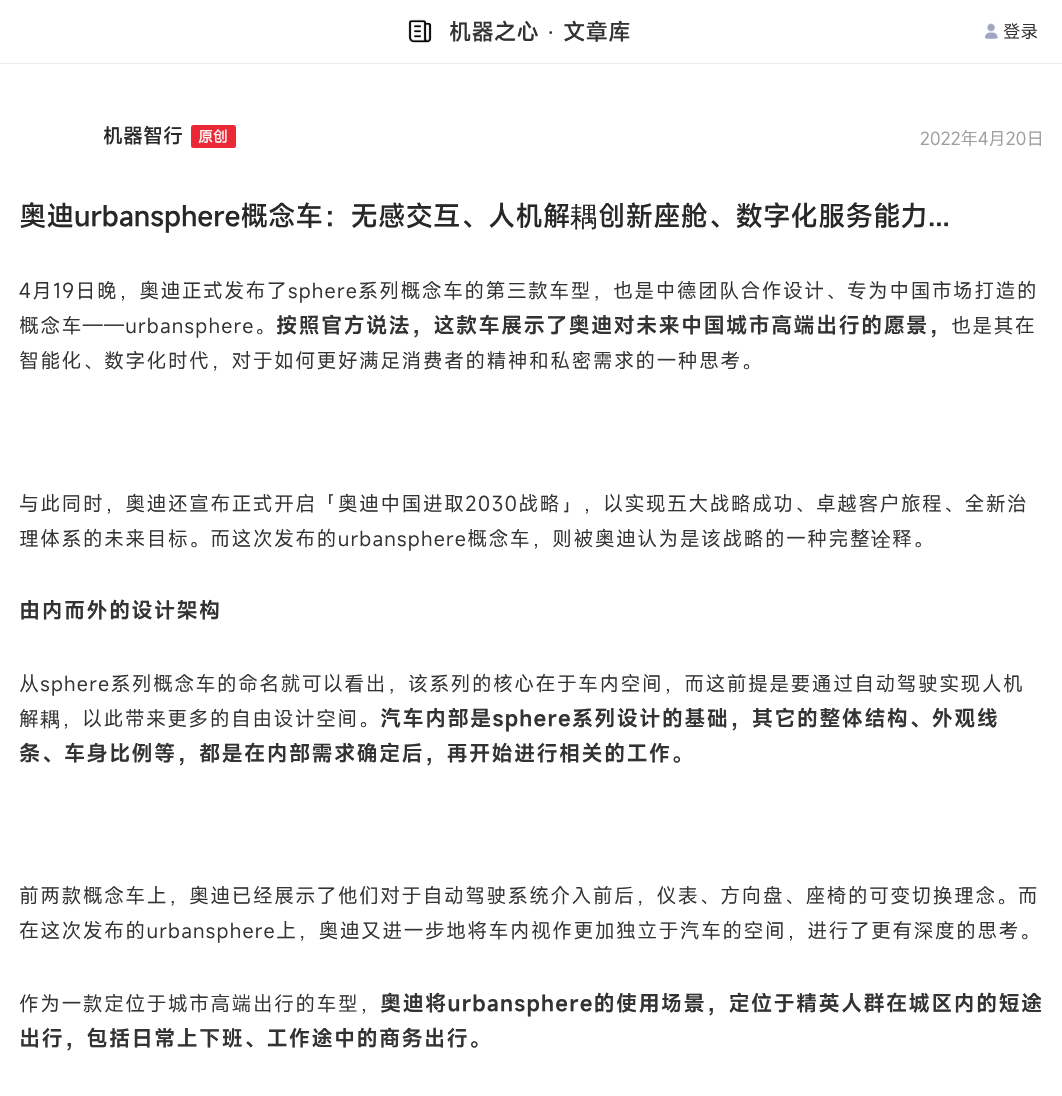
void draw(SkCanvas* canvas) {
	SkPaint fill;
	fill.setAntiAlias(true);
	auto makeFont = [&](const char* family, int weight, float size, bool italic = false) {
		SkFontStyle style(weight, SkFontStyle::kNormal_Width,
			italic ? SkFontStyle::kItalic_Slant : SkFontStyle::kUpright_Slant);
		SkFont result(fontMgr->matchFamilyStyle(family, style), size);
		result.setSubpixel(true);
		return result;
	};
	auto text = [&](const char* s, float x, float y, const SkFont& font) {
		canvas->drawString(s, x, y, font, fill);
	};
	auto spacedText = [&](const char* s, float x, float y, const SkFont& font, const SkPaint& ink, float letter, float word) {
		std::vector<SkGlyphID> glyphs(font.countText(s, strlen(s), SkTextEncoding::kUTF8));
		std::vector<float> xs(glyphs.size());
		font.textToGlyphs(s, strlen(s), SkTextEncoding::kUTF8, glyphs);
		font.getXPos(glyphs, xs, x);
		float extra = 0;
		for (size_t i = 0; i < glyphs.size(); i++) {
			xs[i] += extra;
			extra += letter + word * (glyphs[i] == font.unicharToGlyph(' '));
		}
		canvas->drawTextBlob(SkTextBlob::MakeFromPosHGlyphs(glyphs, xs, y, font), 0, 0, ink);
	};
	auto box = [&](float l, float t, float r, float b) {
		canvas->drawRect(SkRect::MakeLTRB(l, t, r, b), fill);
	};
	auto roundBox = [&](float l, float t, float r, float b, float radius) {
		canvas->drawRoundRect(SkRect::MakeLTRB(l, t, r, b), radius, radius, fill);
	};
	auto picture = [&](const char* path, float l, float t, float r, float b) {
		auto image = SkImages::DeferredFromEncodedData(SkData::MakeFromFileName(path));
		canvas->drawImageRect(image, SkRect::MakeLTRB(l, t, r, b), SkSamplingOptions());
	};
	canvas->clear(0xFFFFFFFF);
	fill.setColor(0xFFEBECF1);
	canvas->drawPath(SkPathBuilder().moveTo(0, 62).lineTo(0, 64).lineTo(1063, 64).lineTo(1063, 1).lineTo(1062, 1).lineTo(1062, 62).close().detach(), fill);
	fill.setColor(0xCCFFFFFF);
	box(0, 62, 1062, 63);
	picture("image0.png", 408, 19, 432, 43);
	picture("image1.png", 985, 23, 998, 39);
	fill.setColor(0xFFEB2835);
	roundBox(191, 125, 236, 148, 2.5f);
	auto font1 = makeFont("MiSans", 500, 22.5f);
	fill.setColor(0xFF333333);
	text("机器之心", 449, 40, font1);
	auto font2 = makeFont("Liberation Serif", 400, 22.5f);
	text("·", 547, 40, font2);
	text("文章库", 563, 40, font1);
	auto font3 = makeFont("MiSans", 400, 17.5f);
	text("登录", 1003, 38, font3);
	auto font4 = makeFont("MiSans", 500, 20);
	fill.setColor(0xFF282828);
	text("机器智行", 103, 143, font4);
	auto font5 = makeFont("MiSans", 500, 15);
	fill.setColor(0xFFF6F6F6);
	text("原创", 198, 142, font5);
	fill.setColor(0xFF9D9D9D);
	text("2022年4月20日", 920, 145, font3);
	auto font6 = makeFont("MiSans", 500, 27.5f);
	fill.setColor(0xFF282828);
	text("奥迪urbansphere概念车：无感交互、人机解", 19, 226, font6);
	auto font7 = makeFont("WenQuanYi Zen Hei", 500, 27.5f);
	text("耦", 570, 226, font7);
	text("创新座舱、数字化服务能力...", 598, 226, font6);
	auto font8 = makeFont("MiSans", 400, 20);
	fill.setColor(0xFF333333);
	spacedText("4月19日晚，奥迪正式发布了sphere系列概念车的第三款车型，也是中德团队合作设计、专为中国市场打造的", 19, 298, font8, fill, 1.25f, 0);
	spacedText("概念车——urbansphere。", 19, 333, font8, fill, 1.25f, 0);
	auto font9 = makeFont("MiSans", 600, 21.25f);
	spacedText("按照官方说法，这款车展示了奥迪对未来中国城市高端出行的愿景，", 276, 333, font9, fill, 1.25f, 0);
	spacedText("也是其在", 951, 333, font8, fill, 1.25f, 0);
	spacedText("智能化、数字化时代，对于如何更好满足消费者的精神和私密需求的一种思考。", 19, 368, font8, fill, 1.25f, 0);
	spacedText("与此同时，奥迪还宣布正式开启「奥迪中国进取2030战略」，以实现五大战略成功、卓越客户旅程、全新治", 19, 511, font8, fill, 1.25f, 0);
	spacedText("理体系的未来目标。而这次发布的urbansphere概念车，则被奥迪认为是该战略的一种完整", 19, 546, font8, fill, 1.25f, 0);
	auto font10 = makeFont("WenQuanYi Zen Hei", 500, 20);
	spacedText("诠", 871, 546, font10, fill, 1.25f, 0);
	spacedText("释。", 892, 546, font8, fill, 1.25f, 0);
	spacedText("由内而外的设计架构", 19, 618, font9, fill, 1.25f, 0);
	spacedText("从sphere系列概念车的命名就可以看出，该系列的核心在于车内空间，而这前提是要通过自动驾驶实现人机", 19, 691, font8, fill, 1.25f, 0);
	spacedText("解", 19, 726, font8, fill, 1.25f, 0);
	spacedText("耦", 40, 726, font10, fill, 1.25f, 0);
	spacedText("，以此带来更多的自由设计空间。", 61, 726, font8, fill, 1.25f, 0);
	spacedText("汽车内部是sphere系列设计的基础，其它的整体结构、外观线", 380, 726, font9, fill, 1.25f, 0);
	spacedText("条、车身比例等，都是在内部需求确定后，再开始进行相关的工作。", 19, 761, font9, fill, 1.25f, 0);
	spacedText("前两款概念车上，奥迪已经展示了他们对于自动驾驶系统介入前后，仪表、方向盘、座椅的可变切换理念。而", 19, 903, font8, fill, 1.25f, 0);
	spacedText("在这次发布的urbansphere上，奥迪又进一步地将车内视作更加独立于汽车的空间，进行了更有深度的思考。", 19, 938, font8, fill, 1.25f, 0);
	spacedText("作为一款定位于城市高端出行的车型，", 19, 1011, font8, fill, 1.25f, 0);
	spacedText("奥迪将urbansphere的使用场景，定位于精英人群在城区内的短途", 380, 1011, font9, fill, 1.25f, 0);
	spacedText("出行，包括日常上下班、工作途中的商务出行。", 19, 1046, font9, fill, 1.25f, 0);
}
